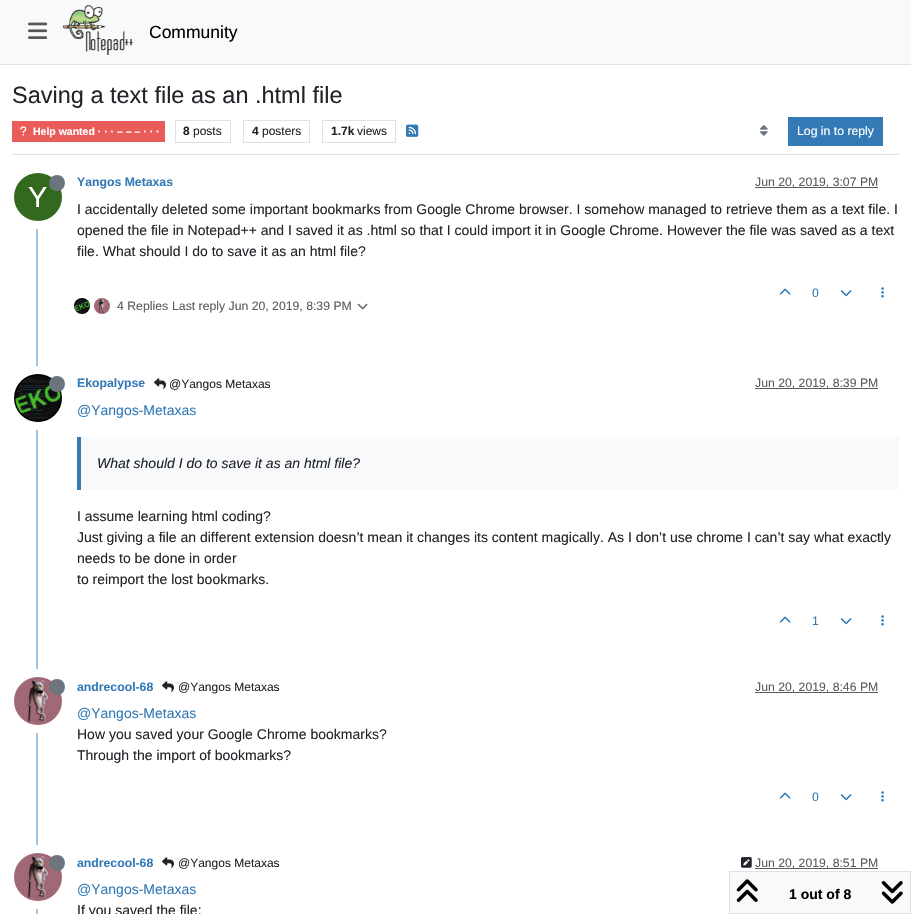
void draw(SkCanvas* canvas) {
	SkPaint fill;
	fill.setAntiAlias(true);
	auto makeFont = [&](const char* family, int weight, float size, bool italic = false) {
		SkFontStyle style(weight, SkFontStyle::kNormal_Width,
			italic ? SkFontStyle::kItalic_Slant : SkFontStyle::kUpright_Slant);
		SkFont result(fontMgr->matchFamilyStyle(family, style), size);
		result.setSubpixel(true);
		return result;
	};
	auto text = [&](const char* s, float x, float y, const SkFont& font) {
		canvas->drawString(s, x, y, font, fill);
	};
	auto box = [&](float l, float t, float r, float b) {
		canvas->drawRect(SkRect::MakeLTRB(l, t, r, b), fill);
	};
	auto picture = [&](const char* path, float l, float t, float r, float b) {
		auto image = SkImages::DeferredFromEncodedData(SkData::MakeFromFileName(path));
		canvas->drawImageRect(image, SkRect::MakeLTRB(l, t, r, b), SkSamplingOptions());
	};
	canvas->clear(0xFFFFFFFF);
	fill.setColor(0xFFF8F9FA);
	box(0, 0, 911, 64);
	fill.setColor(0xFFDEE2E6);
	box(0, 64, 911, 65);
	picture("image0.png", 28, 22, 48, 39);
	picture("image1.png", 63, 5, 134, 55);
	box(12, 154, 899, 155);
	fill.setColor(0xFFE95C5A);
	box(12, 121, 165, 142);
	picture("image2.png", 20, 126, 27, 136);
	fill.setStyle(SkPaint::kStroke_Style);
	fill.setStrokeWidth(1);
	fill.setColor(0xFFDEE2E6);
	canvas->drawRect(SkRect::MakeLTRB(175.5f, 120.5f, 230.5f, 142.5f), fill);
	canvas->drawRect(SkRect::MakeLTRB(243.5f, 120.5f, 309.5f, 142.5f), fill);
	canvas->drawRect(SkRect::MakeLTRB(322.5f, 120.5f, 395.5f, 142.5f), fill);
	picture("image3.png", 406, 124, 419, 137);
	picture("image4.png", 760, 125, 768, 136);
	fill.setStyle(SkPaint::kFill_Style);
	fill.setColor(0xFF337AB7);
	box(788, 117, 883, 146);
	fill.setColor(0xFFA0C4E4);
	box(36, 171, 38, 914);
	fill.setColor(0xFF595C5F);
	box(755, 187, 878, 188);
	fill.setStyle(SkPaint::kStroke_Style);
	fill.setStrokeWidth(8);
	fill.setColor(0xFFFFFFFF);
	canvas->drawCircle(38, 197, 28, fill);
	fill.setStyle(SkPaint::kFill_Style);
	fill.setColor(0xFF33691E);
	canvas->drawCircle(38, 197, 24, fill);
	fill.setColor(0xFF6C757D);
	canvas->drawPath(SkPathBuilder().moveTo(57, 191).cubicTo(67.5f, 191, 67.5f, 175, 57, 175).cubicTo(46.5f, 175, 46.5f, 191, 57, 191).close().detach(), fill);
	picture("image5.png", 779, 288, 791, 295);
	picture("image6.png", 840, 290, 852, 297);
	picture("image7.png", 881, 287, 884, 298);
	picture("image8.png", 74, 298, 90, 314);
	picture("image9.png", 94, 298, 110, 314);
	picture("image10.png", 357, 303, 368, 310);
	fill.setStyle(SkPaint::kStroke_Style);
	fill.setColor(0xFFFFFFFF);
	canvas->drawCircle(38, 398, 28, fill);
	picture("image11.png", 14, 374, 62, 422);
	fill.setStyle(SkPaint::kFill_Style);
	fill.setColor(0xFF6C757D);
	canvas->drawPath(SkPathBuilder().moveTo(57, 392).cubicTo(67.5f, 392, 67.5f, 376, 57, 376).cubicTo(46.5f, 376, 46.5f, 392, 57, 392).close().detach(), fill);
	picture("image12.png", 154, 378, 166, 389);
	fill.setColor(0xFF595C5F);
	box(755, 388, 878, 389);
	fill.setColor(0xFFF8F9FA);
	box(81, 437, 899, 490);
	fill.setColor(0xFF337AB7);
	box(77, 437, 81, 490);
	picture("image5.png", 779, 616, 791, 623);
	picture("image6.png", 840, 618, 852, 625);
	picture("image7.png", 881, 615, 884, 626);
	fill.setStyle(SkPaint::kStroke_Style);
	fill.setColor(0xFFFFFFFF);
	canvas->drawCircle(38, 701, 28, fill);
	picture("image13.png", 14, 677, 62, 725);
	fill.setStyle(SkPaint::kFill_Style);
	fill.setColor(0xFF6C757D);
	canvas->drawPath(SkPathBuilder().moveTo(57, 695).cubicTo(67.5f, 695, 67.5f, 679, 57, 679).cubicTo(46.5f, 679, 46.5f, 695, 57, 695).close().detach(), fill);
	picture("image12.png", 162, 681, 174, 692);
	fill.setColor(0xFF595C5F);
	box(755, 692, 878, 693);
	picture("image5.png", 779, 792, 791, 799);
	picture("image6.png", 840, 794, 852, 801);
	picture("image7.png", 881, 791, 884, 802);
	fill.setStyle(SkPaint::kStroke_Style);
	fill.setColor(0xFFFFFFFF);
	canvas->drawCircle(38, 877, 28, fill);
	picture("image13.png", 14, 853, 62, 901);
	fill.setStyle(SkPaint::kFill_Style);
	fill.setColor(0xFF6C757D);
	canvas->drawPath(SkPathBuilder().moveTo(57, 871).cubicTo(67.5f, 871, 67.5f, 855, 57, 855).cubicTo(46.5f, 855, 46.5f, 871, 57, 871).close().detach(), fill);
	picture("image12.png", 162, 857, 174, 868);
	picture("image14.png", 741, 857, 752, 868);
	fill.setColor(0xFF595C5F);
	box(755, 868, 878, 869);
	fill.setColor(0xFFF8F9FA);
	canvas->drawRect(SkRect::MakeLTRB(729.5f, 871.5f, 910.5f, 913.5f), fill);
	fill.setStyle(SkPaint::kStroke_Style);
	fill.setStrokeWidth(1);
	fill.setColor(0xFFDEE2E6);
	canvas->drawRect(SkRect::MakeLTRB(729.5f, 871.5f, 910.5f, 913.5f), fill);
	picture("image15.png", 736, 879, 758, 902);
	picture("image16.png", 881, 881, 903, 904);
	auto font1 = makeFont("Liberation Sans", 400, 17.5f);
	fill.setStyle(SkPaint::kFill_Style);
	fill.setColor(0xFF000000);
	text("Community", 149, 38, font1);
	auto font2 = makeFont("Liberation Sans", 400, 23.5f);
	fill.setColor(0xFF212529);
	text("Saving a text file as an .html file", 12, 103, font2);
	auto font3 = makeFont("Liberation Sans", 700, 10.5f);
	fill.setColor(0xFFFFFFFF);
	text("Help wanted · · · – – – · · ·", 33, 135, font3);
	auto font4 = makeFont("Liberation Sans", 700, 12);
	fill.setColor(0xFF212529);
	text("8", 183, 135, font4);
	auto font5 = makeFont("Liberation Sans", 400, 12);
	text("posts", 193, 135, font5);
	text("4", 252, 135, font4);
	text("posters", 262, 135, font5);
	text("1.7k", 331, 135, font4);
	text("views", 357, 135, font5);
	auto font6 = makeFont("Liberation Sans", 400, 12.25f);
	fill.setColor(0xFFFFFFFF);
	text("Log in to reply", 797, 135, font6);
	auto font7 = makeFont("Liberation Sans", 700, 12.25f);
	fill.setColor(0xFF337AB7);
	text("Yangos Metaxas", 77, 186, font7);
	fill.setColor(0xFF595C5F);
	text("Jun 20, 2019, 3:07 PM", 755, 186, font6);
	auto font8 = makeFont("Liberation Sans", 400, 29);
	fill.setColor(0xFFFFFFFF);
	text("Y", 28, 207, font8);
	auto font9 = makeFont("Liberation Sans", 400, 14);
	fill.setColor(0xFF212529);
	text("I accidentally deleted some important bookmarks from Google Chrome browser. I somehow managed to retrieve them as a text file. I", 77, 214, font9);
	text("opened the file in Notepad++ and I saved it as .html so that I could import it in Google Chrome. However the file was saved as a text", 77, 235, font9);
	text("file. What should I do to save it as an html file?", 77, 256, font9);
	fill.setColor(0xFF337AB7);
	text("0", 812, 297, font6);
	fill.setColor(0xFF595C5F);
	text("4 Replies", 117, 310, font6);
	text("Last reply Jun 20, 2019, 8:39 PM", 172, 310, font6);
	fill.setColor(0xFF337AB7);
	text("Ekopalypse", 77, 387, font7);
	fill.setColor(0xFF212529);
	text("@Yangos Metaxas", 169, 388, font5);
	fill.setColor(0xFF595C5F);
	text("Jun 20, 2019, 8:39 PM", 755, 387, font6);
	fill.setColor(0xFF337AB7);
	text("@Yangos-Metaxas", 77, 415, font9);
	auto font10 = makeFont("Liberation Sans", 400, 14, true);
	fill.setColor(0xFF212529);
	text("What should I do to save it as an html file?", 97, 468, font10);
	text("I assume learning html coding?", 77, 521, font9);
	text("Just giving a file an different extension doesn’t mean it changes its content magically. As I don’t use chrome I can’t say what exactly", 77, 542, font9);
	text("needs to be done in order", 77, 563, font9);
	text("to reimport the lost bookmarks.", 77, 584, font9);
	fill.setColor(0xFF337AB7);
	text("1", 812, 625, font6);
	text("andrecool-68", 77, 691, font7);
	fill.setColor(0xFF212529);
	text("@Yangos Metaxas", 178, 691, font5);
	fill.setColor(0xFF595C5F);
	text("Jun 20, 2019, 8:46 PM", 755, 691, font6);
	fill.setColor(0xFF337AB7);
	text("@Yangos-Metaxas", 77, 718, font9);
	fill.setColor(0xFF212529);
	text("How you saved your Google Chrome bookmarks?", 77, 739, font9);
	text("Through the import of bookmarks?", 77, 760, font9);
	fill.setColor(0xFF337AB7);
	text("0", 812, 801, font6);
	text("andrecool-68", 77, 867, font7);
	fill.setColor(0xFF212529);
	text("@Yangos Metaxas", 178, 867, font5);
	fill.setColor(0xFF595C5F);
	text("Jun 20, 2019, 8:51 PM", 755, 867, font6);
	fill.setColor(0xFF337AB7);
	text("@Yangos-Metaxas", 77, 894, font9);
	fill.setColor(0xFF212529);
	text("If you saved the file:", 77, 915, font9);
	auto font11 = makeFont("Liberation Sans", 700, 14);
	fill.setColor(0xFF000000);
	text("1 out of 8", 789, 899, font11);
}
